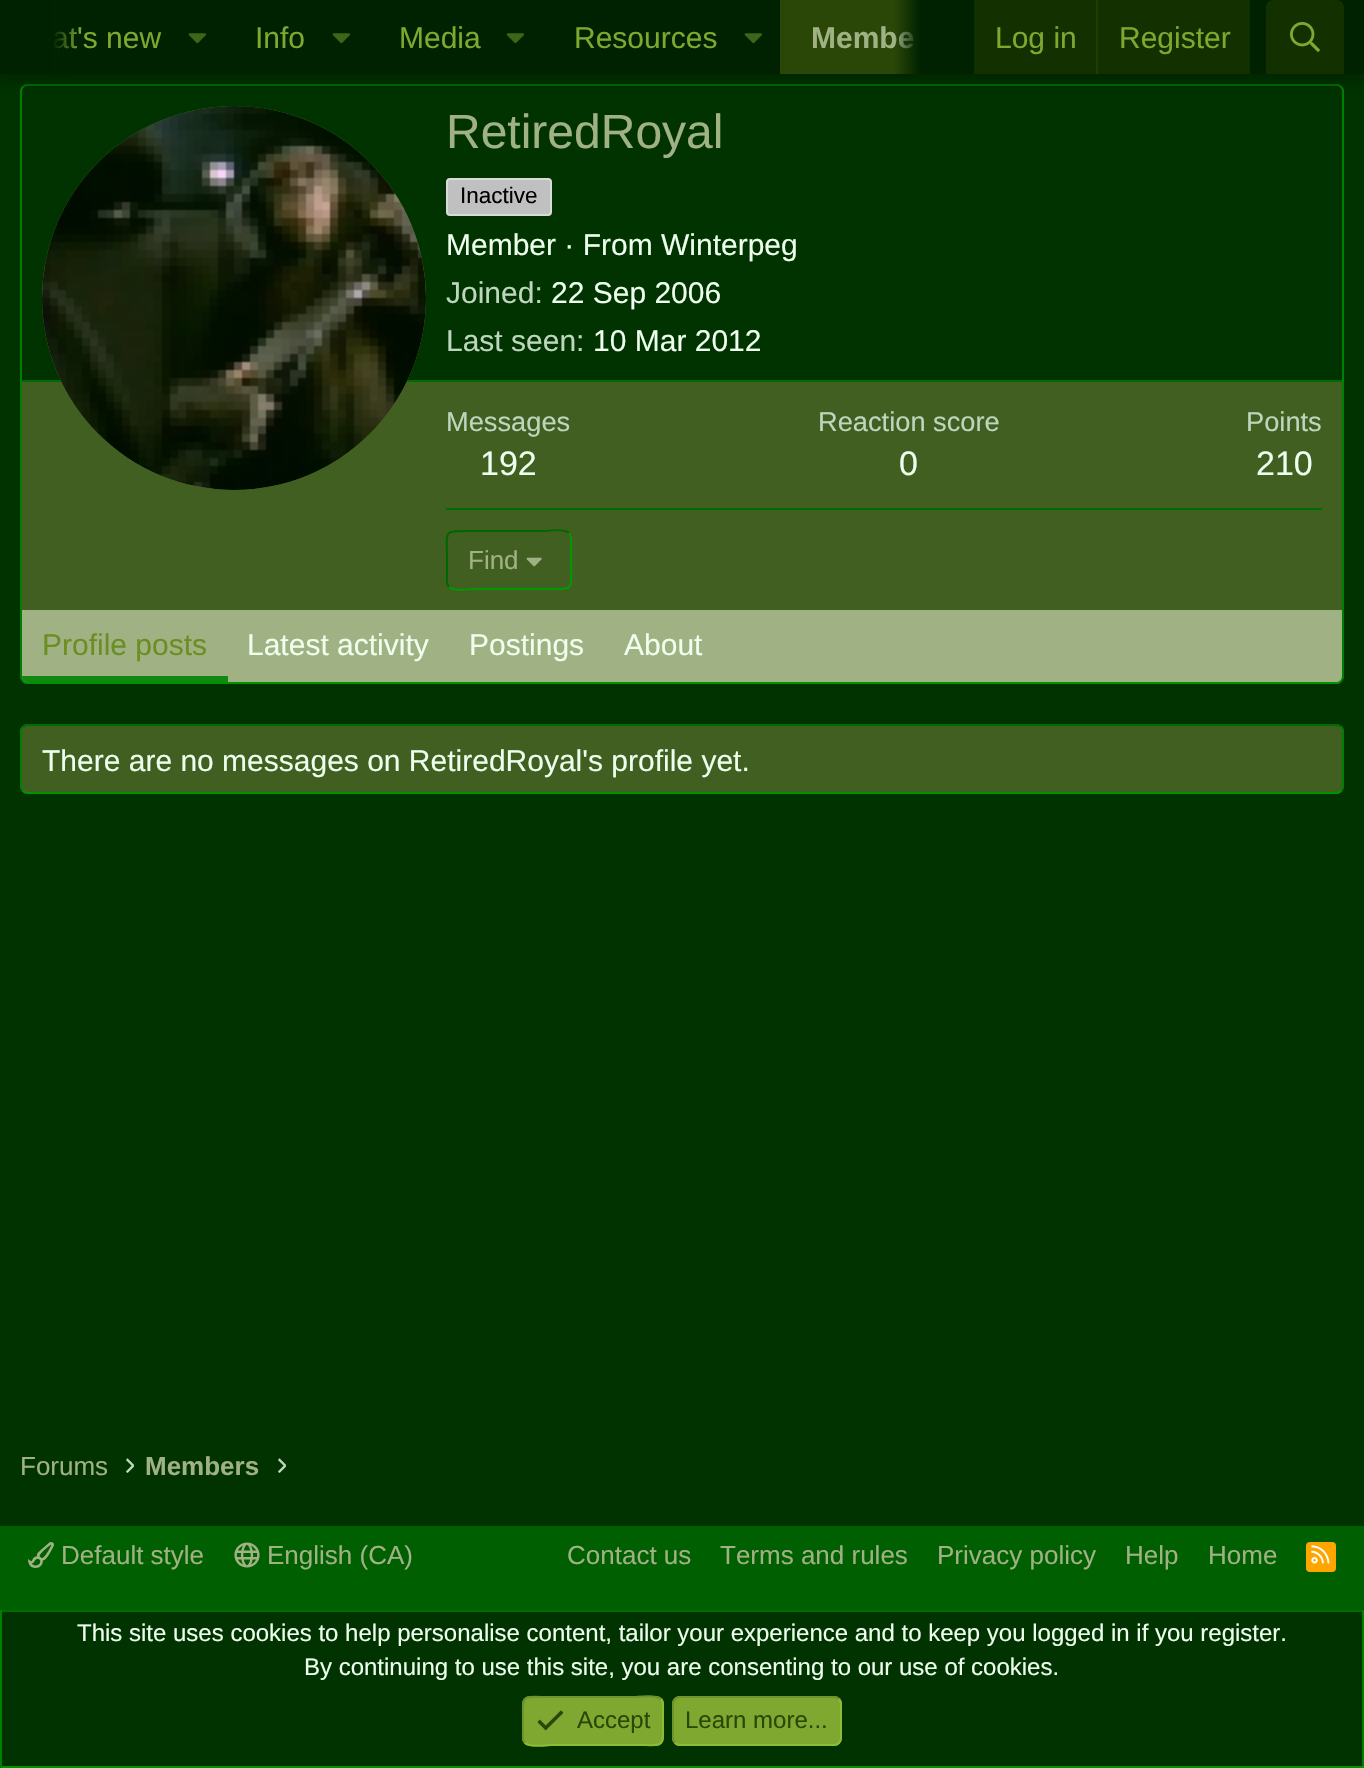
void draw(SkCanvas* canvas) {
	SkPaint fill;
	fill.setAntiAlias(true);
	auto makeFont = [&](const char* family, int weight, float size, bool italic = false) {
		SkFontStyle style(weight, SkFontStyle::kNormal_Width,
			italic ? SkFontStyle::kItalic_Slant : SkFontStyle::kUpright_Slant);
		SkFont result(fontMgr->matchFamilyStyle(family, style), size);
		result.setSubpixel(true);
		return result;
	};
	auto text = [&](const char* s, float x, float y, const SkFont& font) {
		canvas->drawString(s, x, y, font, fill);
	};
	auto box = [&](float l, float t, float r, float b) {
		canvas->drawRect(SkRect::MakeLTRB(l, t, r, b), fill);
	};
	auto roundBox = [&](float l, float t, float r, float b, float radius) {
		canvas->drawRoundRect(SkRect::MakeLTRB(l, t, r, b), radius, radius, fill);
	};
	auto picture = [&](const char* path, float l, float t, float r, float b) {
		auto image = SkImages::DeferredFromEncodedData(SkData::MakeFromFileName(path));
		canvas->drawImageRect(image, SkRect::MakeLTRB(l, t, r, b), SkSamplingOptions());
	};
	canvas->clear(0xFF003300);
	fill.setColor(0xFF415F21);
	roundBox(20, 84, 1344, 684, 8);
	fill.setStyle(SkPaint::kStroke_Style);
	fill.setStrokeWidth(2);
	fill.setColor(0xFF006B00);
	canvas->drawPath(SkPathBuilder().moveTo(23, 87).cubicTo(24.5f, 85.5f, 26, 85, 28, 85).lineTo(1336, 85).cubicTo(1338, 85, 1339.5f, 85.5f, 1341, 87).detach(), fill);
	fill.setColor(0xFF008000);
	canvas->drawPath(SkPathBuilder().moveTo(1341, 87).cubicTo(1342.5f, 88.5f, 1343, 90, 1343, 92).lineTo(1343, 676).cubicTo(1343, 678, 1342.5f, 679.5f, 1341, 681).detach(), fill);
	fill.setColor(0xFF009400);
	canvas->drawPath(SkPathBuilder().moveTo(1341, 681).cubicTo(1339.5f, 682.5f, 1338, 683, 1336, 683).lineTo(28, 683).cubicTo(26, 683, 24.5f, 682.5f, 23, 681).detach(), fill);
	fill.setColor(0xFF008000);
	canvas->drawPath(SkPathBuilder().moveTo(23, 681).cubicTo(21.5f, 679.5f, 21, 678, 21, 676).lineTo(21, 92).cubicTo(21, 90, 21.5f, 88.5f, 23, 87).detach(), fill);
	fill.setStyle(SkPaint::kFill_Style);
	fill.setColor(0xFF003300);
	canvas->drawPath(SkPathBuilder().moveTo(28, 86).lineTo(1336, 86).cubicTo(1339.5f, 86, 1342, 88.5f, 1342, 92).lineTo(1342, 382).lineTo(22, 382).lineTo(22, 92).cubicTo(22, 88.5f, 24.5f, 86, 28, 86).close().detach(), fill);
	fill.setColor(0x4D000000);
	fill.setMaskFilter(SkMaskFilter::MakeBlur(kNormal_SkBlurStyle, 8));
	canvas->drawRect(SkRect::MakeLTRB(-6, -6, 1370, 80), fill);
	fill.setMaskFilter(nullptr);
	fill.setColor(0xFF002200);
	box(53, 0, 1364, 74);
	picture("image0.png", 188, 33, 206, 44);
	picture("image0.png", 332, 33, 350, 44);
	picture("image0.png", 506, 33, 524, 44);
	picture("image0.png", 744, 33, 762, 44);
	fill.setColor(0xFF2A4708);
	box(780, 0, 920, 74);
	fill.setColor(0xFF133000);
	box(974, 0, 1250, 74);
	fill.setColor(0xFF233C00);
	box(1096, 0, 1098, 74);
	fill.setColor(0xFF133000);
	canvas->drawPath(SkPathBuilder().moveTo(1274, 0).lineTo(1336, 0).cubicTo(1340.5f, 0, 1344, 3.5f, 1344, 8).lineTo(1344, 74).lineTo(1266, 74).lineTo(1266, 8).cubicTo(1266, 3.5f, 1269.5f, 0, 1274, 0).close().detach(), fill);
	picture("image1.png", 1290, 22, 1320, 52);
	fill.setColor(0xFF006B00);
	box(22, 380, 1342, 382);
	fill.setColor(0xFF415F21);
	canvas->drawCircle(234, 298, 192, fill);
	picture("image2.png", 42, 106, 426, 490);
	fill.setColor(0xFFC0C0C0);
	canvas->drawRoundRect(SkRect::MakeLTRB(447, 179, 551, 215), 3, 3, fill);
	fill.setStyle(SkPaint::kStroke_Style);
	fill.setColor(0xFFDADADA);
	canvas->drawRoundRect(SkRect::MakeLTRB(447, 179, 551, 215), 3, 3, fill);
	fill.setStyle(SkPaint::kFill_Style);
	fill.setColor(0xFF006B00);
	box(446, 508, 1322, 510);
	fill.setStyle(SkPaint::kStroke_Style);
	fill.setColor(0xFF009900);
	canvas->drawPath(SkPathBuilder().moveTo(569, 533).cubicTo(572, 536, 571, 541.5f, 571, 545.5f).lineTo(571, 560).cubicTo(571, 591.5f, 576, 589, 545.5f, 589).lineTo(472.5f, 589).cubicTo(471.5f, 589, 454, 592, 449, 587).detach(), fill);
	fill.setColor(0xFF006600);
	canvas->drawPath(SkPathBuilder().moveTo(449, 587).cubicTo(446, 584, 447, 578.5f, 447, 574.5f).lineTo(447, 560).cubicTo(447, 528.5f, 442, 531, 472.5f, 531).lineTo(545.5f, 531).cubicTo(546.5f, 531, 564, 528, 569, 533).detach(), fill);
	picture("image3.png", 526, 557, 542, 567);
	fill.setStyle(SkPaint::kFill_Style);
	fill.setColor(0xFFA0B184);
	canvas->drawPath(SkPathBuilder().moveTo(22, 610).lineTo(1342, 610).lineTo(1342, 676).cubicTo(1342, 679.5f, 1339.5f, 682, 1336, 682).lineTo(28, 682).cubicTo(24.5f, 682, 22, 679.5f, 22, 676).close().detach(), fill);
	fill.setColor(0xFF118811);
	canvas->drawPath(SkPathBuilder().moveTo(22, 676).lineTo(228, 676).lineTo(228, 682).lineTo(28, 682).cubicTo(24.5f, 682, 22, 679.5f, 22, 676).close().detach(), fill);
	fill.setColor(0xFF415F21);
	roundBox(20, 724, 1344, 794, 8);
	fill.setStyle(SkPaint::kStroke_Style);
	fill.setColor(0xFF006B00);
	canvas->drawPath(SkPathBuilder().moveTo(23, 727).cubicTo(24.5f, 725.5f, 26, 725, 28, 725).lineTo(1336, 725).cubicTo(1338, 725, 1339.5f, 725.5f, 1341, 727).detach(), fill);
	fill.setColor(0xFF008000);
	canvas->drawPath(SkPathBuilder().moveTo(1341, 727).cubicTo(1342.5f, 728.5f, 1343, 730, 1343, 732).lineTo(1343, 786).cubicTo(1343, 788, 1342.5f, 789.5f, 1341, 791).detach(), fill);
	fill.setColor(0xFF009400);
	canvas->drawPath(SkPathBuilder().moveTo(1341, 791).cubicTo(1339.5f, 792.5f, 1338, 793, 1336, 793).lineTo(28, 793).cubicTo(26, 793, 24.5f, 792.5f, 23, 791).detach(), fill);
	fill.setColor(0xFF008000);
	canvas->drawPath(SkPathBuilder().moveTo(23, 791).cubicTo(21.5f, 789.5f, 21, 788, 21, 786).lineTo(21, 732).cubicTo(21, 730, 21.5f, 728.5f, 23, 727).detach(), fill);
	picture("image4.png", 126, 1458, 134, 1473);
	picture("image4.png", 278, 1458, 286, 1473);
	fill.setStyle(SkPaint::kFill_Style);
	fill.setColor(0xFF005F00);
	box(0, 1526, 1364, 1610);
	picture("image5.png", 28, 1542, 54, 1568);
	picture("image6.png", 234, 1542, 260, 1568);
	fill.setColor(0xFFFFA500);
	roundBox(1306, 1542, 1336, 1572, 4);
	picture("image7.png", 1311, 1545, 1330, 1564);
	fill.setColor(0xFF006B00);
	box(0, 1610, 1364, 1612);
	fill.setColor(0xFF008000);
	box(1362, 1610, 1364, 1768);
	fill.setColor(0xFF009400);
	box(0, 1766, 1364, 1768);
	fill.setColor(0xFF008000);
	box(0, 1610, 2, 1768);
	fill.setColor(0xFF7EA830);
	roundBox(522, 1696, 664, 1746, 8);
	fill.setStyle(SkPaint::kStroke_Style);
	fill.setColor(0xFF8DBC36);
	canvas->drawPath(SkPathBuilder().moveTo(661, 1699).cubicTo(664, 1702, 663, 1706, 663, 1709.5f).lineTo(663, 1721).cubicTo(663, 1749, 665.5f, 1745, 635, 1745).lineTo(551, 1745).cubicTo(549, 1745, 530, 1748, 525, 1743).detach(), fill);
	fill.setColor(0xFF6F942A);
	canvas->drawPath(SkPathBuilder().moveTo(525, 1743).cubicTo(522, 1740, 523, 1736, 523, 1732.5f).lineTo(523, 1721).cubicTo(523, 1693, 520.5f, 1697, 551, 1697).lineTo(635, 1697).cubicTo(637, 1697, 656, 1694, 661, 1699).detach(), fill);
	picture("image8.png", 537, 1710, 564, 1731);
	fill.setStyle(SkPaint::kFill_Style);
	fill.setColor(0xFF7EA830);
	roundBox(672, 1696, 842, 1746, 8);
	fill.setStyle(SkPaint::kStroke_Style);
	fill.setColor(0xFF8DBC36);
	canvas->drawPath(SkPathBuilder().moveTo(839, 1699).cubicTo(840.5f, 1700.5f, 841, 1702, 841, 1704).lineTo(841, 1738).cubicTo(841, 1740, 840.5f, 1741.5f, 839, 1743).cubicTo(837.5f, 1744.5f, 836, 1745, 834, 1745).lineTo(680, 1745).cubicTo(678, 1745, 676.5f, 1744.5f, 675, 1743).detach(), fill);
	fill.setColor(0xFF6F942A);
	canvas->drawPath(SkPathBuilder().moveTo(675, 1743).cubicTo(673.5f, 1741.5f, 673, 1740, 673, 1738).lineTo(673, 1704).cubicTo(673, 1702, 673.5f, 1700.5f, 675, 1699).cubicTo(676.5f, 1697.5f, 678, 1697, 680, 1697).lineTo(834, 1697).cubicTo(836, 1697, 837.5f, 1697.5f, 839, 1699).detach(), fill);
	auto font1 = makeFont("Liberation Sans", 400, 30);
	fill.setStyle(SkPaint::kFill_Style);
	fill.setColor(0xFF7EA830);
	text("at's new", 52, 48, font1);
	{
		const SkColor colors[] = {0xFF002200, 0x00002200};
		const float stops[] = {0.66f, 1};
		const SkPoint ends[] = {{0, 37}, {80, 37}};
		fill.setShader(SkGradientShader::MakeLinear(ends, colors, stops, 2, SkTileMode::kClamp));
		fill.setAlpha(255);
	}
	box(0, 0, 77, 74);
	fill.setShader(nullptr);
	fill.setColor(0xFF7EA830);
	text("Info", 255, 48, font1);
	text("Media", 399, 48, font1);
	text("Resources", 574, 48, font1);
	auto font2 = makeFont("Liberation Sans", 700, 30);
	fill.setColor(0xFFA0B184);
	text("Membe", 811, 48, font2);
	{
		const SkColor colors[] = {0x00002200, 0xFF002200};
		const float stops[] = {0, 0.33f};
		const SkPoint ends[] = {{894, 37}, {974, 37}};
		fill.setShader(SkGradientShader::MakeLinear(ends, colors, stops, 2, SkTileMode::kClamp));
		fill.setAlpha(255);
	}
	box(895, 0, 920, 74);
	fill.setShader(nullptr);
	fill.setColor(0xFF7EA830);
	text("Log in", 995, 48, font1);
	text("Register", 1119, 48, font1);
	auto font3 = makeFont("Liberation Sans", 400, 48);
	fill.setColor(0xFFA0B184);
	text("RetiredRoyal", 446, 148, font3);
	auto font4 = makeFont("Liberation Sans", 400, 22.5f);
	fill.setColor(0xFF000000);
	text("Inactive", 460, 203, font4);
	fill.setColor(0xFFEEFFEE);
	text("Member · From Winterpeg", 446, 255, font1);
	fill.setColor(0xFFBED6BE);
	text("Joined:", 446, 303, font1);
	fill.setColor(0xFFEEFFEE);
	text("22 Sep 2006", 551, 303, font1);
	fill.setColor(0xFFBED6BE);
	text("Last seen:", 446, 351, font1);
	fill.setColor(0xFFEEFFEE);
	text("10 Mar 2012", 593, 351, font1);
	auto font5 = makeFont("Liberation Sans", 400, 27.25f);
	fill.setColor(0xFFBED6BE);
	text("Messages", 446, 431, font5);
	auto font6 = makeFont("Liberation Sans", 400, 34);
	fill.setColor(0xFFEEFFEE);
	text("192", 480, 475, font6);
	fill.setColor(0xFFBED6BE);
	text("Reaction score", 818, 431, font5);
	fill.setColor(0xFFEEFFEE);
	text("0", 899, 475, font6);
	fill.setColor(0xFFBED6BE);
	text("Points", 1246, 431, font5);
	fill.setColor(0xFFEEFFEE);
	text("210", 1256, 475, font6);
	auto font7 = makeFont("Liberation Sans", 400, 26);
	fill.setColor(0xFFA0B184);
	text("Find", 468, 569, font7);
	fill.setColor(0xFF6B8E23);
	text("Profile posts", 42, 655, font1);
	fill.setColor(0xFFEEFFEE);
	text("Latest activity", 247, 655, font1);
	text("Postings", 469, 655, font1);
	text("About", 624, 655, font1);
	text("There are no messages on RetiredRoyal's profile yet.", 42, 771, font1);
	fill.setColor(0xFFA0B184);
	text("Forums", 20, 1475, font7);
	auto font8 = makeFont("Liberation Sans", 700, 26);
	text("Members", 145, 1475, font8);
	text("Default style", 61, 1564, font7);
	text("English (CA)", 267, 1564, font7);
	text("Contact us", 567, 1564, font7);
	text("Terms and rules", 720, 1564, font7);
	text("Privacy policy", 937, 1564, font7);
	text("Help", 1125, 1564, font7);
	text("Home", 1208, 1564, font7);
	auto font9 = makeFont("Liberation Sans", 400, 24);
	fill.setColor(0xFFEEFFEE);
	text("This site uses cookies to help personalise content, tailor your experience and to keep you logged in if you register.", 77, 1641, font9);
	text("By continuing to use this site, you are consenting to our use of cookies.", 304, 1675, font9);
	fill.setColor(0xFF2A4708);
	text("Accept", 577, 1728, font9);
	text("Learn more...", 685, 1728, font9);
}
